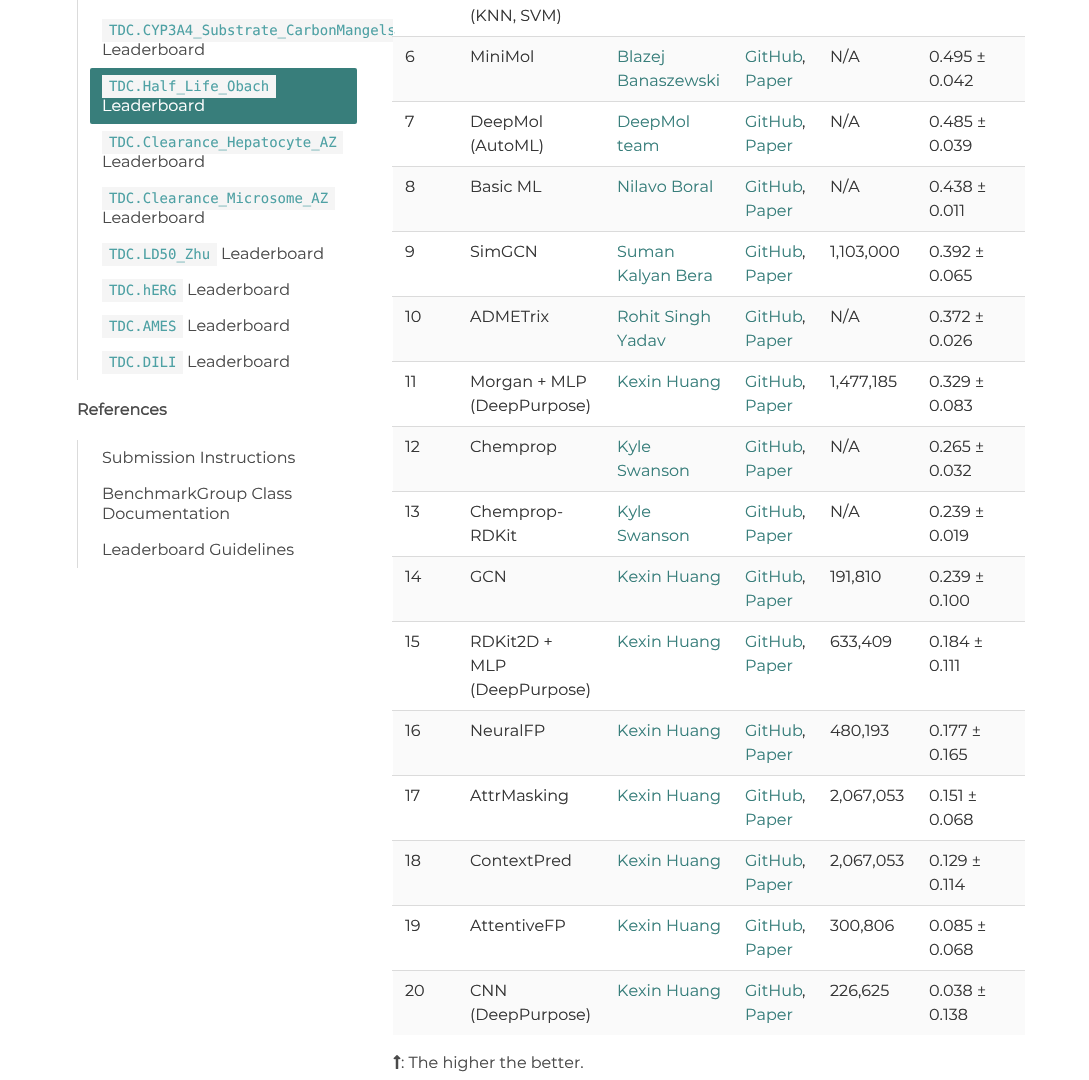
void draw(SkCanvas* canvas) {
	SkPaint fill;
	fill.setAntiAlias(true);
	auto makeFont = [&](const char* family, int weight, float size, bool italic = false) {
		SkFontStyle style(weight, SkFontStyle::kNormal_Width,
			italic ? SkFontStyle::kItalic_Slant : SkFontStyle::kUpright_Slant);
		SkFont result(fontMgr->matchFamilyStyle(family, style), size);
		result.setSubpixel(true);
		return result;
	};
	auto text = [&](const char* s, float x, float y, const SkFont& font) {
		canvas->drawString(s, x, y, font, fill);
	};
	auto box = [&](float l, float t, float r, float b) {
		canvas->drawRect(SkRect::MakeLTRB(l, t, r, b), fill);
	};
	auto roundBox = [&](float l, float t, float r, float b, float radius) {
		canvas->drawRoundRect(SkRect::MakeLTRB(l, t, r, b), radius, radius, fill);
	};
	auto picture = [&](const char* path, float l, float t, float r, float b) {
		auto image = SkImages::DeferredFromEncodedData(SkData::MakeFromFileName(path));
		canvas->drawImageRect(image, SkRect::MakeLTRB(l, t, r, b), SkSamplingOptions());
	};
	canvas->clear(0xFFFFFFFF);
	fill.setColor(0xFFDBDBDB);
	box(77, 0, 78, 380);
	fill.setColor(0xFFF5F5F5);
	box(102, 19, 393, 42);
	fill.setColor(0xFF387E7B);
	roundBox(90, 68, 357, 124, 2);
	fill.setColor(0xFFF5F5F5);
	box(102, 75, 276, 98);
	box(102, 131, 343, 154);
	box(102, 187, 335, 210);
	box(102, 243, 217, 266);
	box(102, 279, 183, 302);
	box(102, 315, 183, 338);
	box(102, 351, 183, 374);
	fill.setColor(0xFFDBDBDB);
	box(77, 440, 78, 568);
	box(392, 101, 1025, 102);
	box(392, 166, 1025, 167);
	fill.setColor(0xFFFAFAFA);
	box(393, 167, 1025, 231);
	fill.setColor(0xFFDBDBDB);
	box(392, 231, 1025, 232);
	box(392, 296, 1025, 297);
	fill.setColor(0xFFFAFAFA);
	box(393, 297, 1025, 361);
	fill.setColor(0xFFDBDBDB);
	box(392, 361, 1025, 362);
	box(392, 426, 1025, 427);
	fill.setColor(0xFFFAFAFA);
	box(393, 427, 1025, 491);
	fill.setColor(0xFFDBDBDB);
	box(392, 491, 1025, 492);
	box(392, 556, 1025, 557);
	fill.setColor(0xFFFAFAFA);
	box(393, 557, 1025, 621);
	fill.setColor(0xFFDBDBDB);
	box(392, 621, 1025, 622);
	box(392, 710, 1025, 711);
	fill.setColor(0xFFFAFAFA);
	box(393, 711, 1025, 775);
	fill.setColor(0xFFDBDBDB);
	box(392, 775, 1025, 776);
	box(392, 840, 1025, 841);
	fill.setColor(0xFFFAFAFA);
	box(393, 841, 1025, 905);
	fill.setColor(0xFFDBDBDB);
	box(392, 905, 1025, 906);
	box(392, 970, 1025, 971);
	fill.setColor(0xFFFAFAFA);
	box(393, 971, 1025, 1035);
	picture("image0.png", 393, 1055, 401, 1069);
	auto font1 = makeFont("DejaVu Sans Mono", 400, 14);
	fill.setColor(0xFF4EA1A4);
	text("TDC.CYP3A4_Substrate_CarbonMangels", 109, 35, font1);
	auto font2 = makeFont("Montserrat", 100, 16);
	fill.setColor(0xFF4A4A4A);
	text("Leaderboard", 102, 55, font2);
	fill.setColor(0xFF4EA1A4);
	text("TDC.Half_Life_Obach", 109, 91, font1);
	fill.setColor(0xFFFFFFFF);
	text("Leaderboard", 102, 111, font2);
	fill.setColor(0xFF4EA1A4);
	text("TDC.Clearance_Hepatocyte_AZ", 109, 147, font1);
	fill.setColor(0xFF4A4A4A);
	text("Leaderboard", 102, 167, font2);
	fill.setColor(0xFF4EA1A4);
	text("TDC.Clearance_Microsome_AZ", 109, 203, font1);
	fill.setColor(0xFF4A4A4A);
	text("Leaderboard", 102, 223, font2);
	fill.setColor(0xFF4EA1A4);
	text("TDC.LD50_Zhu", 109, 259, font1);
	fill.setColor(0xFF4A4A4A);
	text("Leaderboard", 221, 259, font2);
	fill.setColor(0xFF4EA1A4);
	text("TDC.hERG", 109, 295, font1);
	fill.setColor(0xFF4A4A4A);
	text("Leaderboard", 187, 295, font2);
	fill.setColor(0xFF4EA1A4);
	text("TDC.AMES", 109, 331, font1);
	fill.setColor(0xFF4A4A4A);
	text("Leaderboard", 187, 331, font2);
	fill.setColor(0xFF4EA1A4);
	text("TDC.DILI", 109, 367, font1);
	fill.setColor(0xFF4A4A4A);
	text("Leaderboard", 187, 367, font2);
	auto font3 = makeFont("Montserrat", 700, 16);
	text("References", 77, 415, font3);
	text("Submission Instructions", 102, 463, font2);
	text("BenchmarkGroup Class", 102, 499, font2);
	text("Documentation", 102, 519, font2);
	text("Leaderboard Guidelines", 102, 555, font2);
	fill.setColor(0xFFFFFFFF);
	box(393, 27, 394, 35);
	fill.setColor(0xFF363636);
	text("(KNN, SVM)", 470, 21, font2);
	fill.setColor(0xFFDBDBDB);
	box(392, 36, 1025, 37);
	fill.setColor(0xFFFAFAFA);
	box(393, 37, 1025, 101);
	fill.setColor(0xFF363636);
	text("6", 405, 62, font2);
	text("MiniMol", 470, 62, font2);
	fill.setColor(0xFF387E7B);
	text("Blazej", 617, 62, font2);
	text("Banaszewski", 617, 86, font2);
	text("GitHub", 745, 62, font2);
	fill.setColor(0xFF363636);
	text(",", 802, 62, font2);
	fill.setColor(0xFF387E7B);
	text("Paper", 745, 86, font2);
	fill.setColor(0xFF363636);
	text("N/A", 830, 62, font2);
	text("0.495 ±", 929, 62, font2);
	text("0.042", 929, 86, font2);
	text("7", 405, 127, font2);
	text("DeepMol", 470, 127, font2);
	text("(AutoML)", 470, 151, font2);
	fill.setColor(0xFF387E7B);
	text("DeepMol", 617, 127, font2);
	text("team", 617, 151, font2);
	text("GitHub", 745, 127, font2);
	fill.setColor(0xFF363636);
	text(",", 802, 127, font2);
	fill.setColor(0xFF387E7B);
	text("Paper", 745, 151, font2);
	fill.setColor(0xFF363636);
	text("N/A", 830, 127, font2);
	text("0.485 ±", 929, 127, font2);
	text("0.039", 929, 151, font2);
	text("8", 405, 192, font2);
	text("Basic ML", 470, 192, font2);
	fill.setColor(0xFF387E7B);
	text("Nilavo Boral", 617, 192, font2);
	text("GitHub", 745, 192, font2);
	fill.setColor(0xFF363636);
	text(",", 802, 192, font2);
	fill.setColor(0xFF387E7B);
	text("Paper", 745, 216, font2);
	fill.setColor(0xFF363636);
	text("N/A", 830, 192, font2);
	text("0.438 ±", 929, 192, font2);
	text("0.011", 929, 216, font2);
	text("9", 405, 257, font2);
	text("SimGCN", 470, 257, font2);
	fill.setColor(0xFF387E7B);
	text("Suman", 617, 257, font2);
	text("Kalyan Bera", 617, 281, font2);
	text("GitHub", 745, 257, font2);
	fill.setColor(0xFF363636);
	text(",", 802, 257, font2);
	fill.setColor(0xFF387E7B);
	text("Paper", 745, 281, font2);
	fill.setColor(0xFF363636);
	text("1,103,000", 830, 257, font2);
	text("0.392 ±", 929, 257, font2);
	text("0.065", 929, 281, font2);
	text("10", 405, 322, font2);
	text("ADMETrix", 470, 322, font2);
	fill.setColor(0xFF387E7B);
	text("Rohit Singh", 617, 322, font2);
	text("Yadav", 617, 346, font2);
	text("GitHub", 745, 322, font2);
	fill.setColor(0xFF363636);
	text(",", 802, 322, font2);
	fill.setColor(0xFF387E7B);
	text("Paper", 745, 346, font2);
	fill.setColor(0xFF363636);
	text("N/A", 830, 322, font2);
	text("0.372 ±", 929, 322, font2);
	text("0.026", 929, 346, font2);
	text("11", 405, 387, font2);
	text("Morgan + MLP", 470, 387, font2);
	text("(DeepPurpose)", 470, 411, font2);
	fill.setColor(0xFF387E7B);
	text("Kexin Huang", 617, 387, font2);
	text("GitHub", 745, 387, font2);
	fill.setColor(0xFF363636);
	text(",", 802, 387, font2);
	fill.setColor(0xFF387E7B);
	text("Paper", 745, 411, font2);
	fill.setColor(0xFF363636);
	text("1,477,185", 830, 387, font2);
	text("0.329 ±", 929, 387, font2);
	text("0.083", 929, 411, font2);
	text("12", 405, 452, font2);
	text("Chemprop", 470, 452, font2);
	fill.setColor(0xFF387E7B);
	text("Kyle", 617, 452, font2);
	text("Swanson", 617, 476, font2);
	text("GitHub", 745, 452, font2);
	fill.setColor(0xFF363636);
	text(",", 802, 452, font2);
	fill.setColor(0xFF387E7B);
	text("Paper", 745, 476, font2);
	fill.setColor(0xFF363636);
	text("N/A", 830, 452, font2);
	text("0.265 ±", 929, 452, font2);
	text("0.032", 929, 476, font2);
	text("13", 405, 517, font2);
	text("Chemprop-", 470, 517, font2);
	text("RDKit", 470, 541, font2);
	fill.setColor(0xFF387E7B);
	text("Kyle", 617, 517, font2);
	text("Swanson", 617, 541, font2);
	text("GitHub", 745, 517, font2);
	fill.setColor(0xFF363636);
	text(",", 802, 517, font2);
	fill.setColor(0xFF387E7B);
	text("Paper", 745, 541, font2);
	fill.setColor(0xFF363636);
	text("N/A", 830, 517, font2);
	text("0.239 ±", 929, 517, font2);
	text("0.019", 929, 541, font2);
	text("14", 405, 582, font2);
	text("GCN", 470, 582, font2);
	fill.setColor(0xFF387E7B);
	text("Kexin Huang", 617, 582, font2);
	text("GitHub", 745, 582, font2);
	fill.setColor(0xFF363636);
	text(",", 802, 582, font2);
	fill.setColor(0xFF387E7B);
	text("Paper", 745, 606, font2);
	fill.setColor(0xFF363636);
	text("191,810", 830, 582, font2);
	text("0.239 ±", 929, 582, font2);
	text("0.100", 929, 606, font2);
	text("15", 405, 647, font2);
	text("RDKit2D +", 470, 647, font2);
	text("MLP", 470, 671, font2);
	text("(DeepPurpose)", 470, 695, font2);
	fill.setColor(0xFF387E7B);
	text("Kexin Huang", 617, 647, font2);
	text("GitHub", 745, 647, font2);
	fill.setColor(0xFF363636);
	text(",", 802, 647, font2);
	fill.setColor(0xFF387E7B);
	text("Paper", 745, 671, font2);
	fill.setColor(0xFF363636);
	text("633,409", 830, 647, font2);
	text("0.184 ±", 929, 647, font2);
	text("0.111", 929, 671, font2);
	text("16", 405, 736, font2);
	text("NeuralFP", 470, 736, font2);
	fill.setColor(0xFF387E7B);
	text("Kexin Huang", 617, 736, font2);
	text("GitHub", 745, 736, font2);
	fill.setColor(0xFF363636);
	text(",", 802, 736, font2);
	fill.setColor(0xFF387E7B);
	text("Paper", 745, 760, font2);
	fill.setColor(0xFF363636);
	text("480,193", 830, 736, font2);
	text("0.177 ±", 929, 736, font2);
	text("0.165", 929, 760, font2);
	text("17", 405, 801, font2);
	text("AttrMasking", 470, 801, font2);
	fill.setColor(0xFF387E7B);
	text("Kexin Huang", 617, 801, font2);
	text("GitHub", 745, 801, font2);
	fill.setColor(0xFF363636);
	text(",", 802, 801, font2);
	fill.setColor(0xFF387E7B);
	text("Paper", 745, 825, font2);
	fill.setColor(0xFF363636);
	text("2,067,053", 830, 801, font2);
	text("0.151 ±", 929, 801, font2);
	text("0.068", 929, 825, font2);
	text("18", 405, 866, font2);
	text("ContextPred", 470, 866, font2);
	fill.setColor(0xFF387E7B);
	text("Kexin Huang", 617, 866, font2);
	text("GitHub", 745, 866, font2);
	fill.setColor(0xFF363636);
	text(",", 802, 866, font2);
	fill.setColor(0xFF387E7B);
	text("Paper", 745, 890, font2);
	fill.setColor(0xFF363636);
	text("2,067,053", 830, 866, font2);
	text("0.129 ±", 929, 866, font2);
	text("0.114", 929, 890, font2);
	text("19", 405, 931, font2);
	text("AttentiveFP", 470, 931, font2);
	fill.setColor(0xFF387E7B);
	text("Kexin Huang", 617, 931, font2);
	text("GitHub", 745, 931, font2);
	fill.setColor(0xFF363636);
	text(",", 802, 931, font2);
	fill.setColor(0xFF387E7B);
	text("Paper", 745, 955, font2);
	fill.setColor(0xFF363636);
	text("300,806", 830, 931, font2);
	text("0.085 ±", 929, 931, font2);
	text("0.068", 929, 955, font2);
	text("20", 405, 996, font2);
	text("CNN", 470, 996, font2);
	text("(DeepPurpose)", 470, 1020, font2);
	fill.setColor(0xFF387E7B);
	text("Kexin Huang", 617, 996, font2);
	text("GitHub", 745, 996, font2);
	fill.setColor(0xFF363636);
	text(",", 802, 996, font2);
	fill.setColor(0xFF387E7B);
	text("Paper", 745, 1020, font2);
	fill.setColor(0xFF363636);
	text("226,625", 830, 996, font2);
	text("0.038 ±", 929, 996, font2);
	text("0.138", 929, 1020, font2);
	fill.setColor(0xFF4A4A4A);
	text(": The higher the better.", 401, 1068, font2);
}
